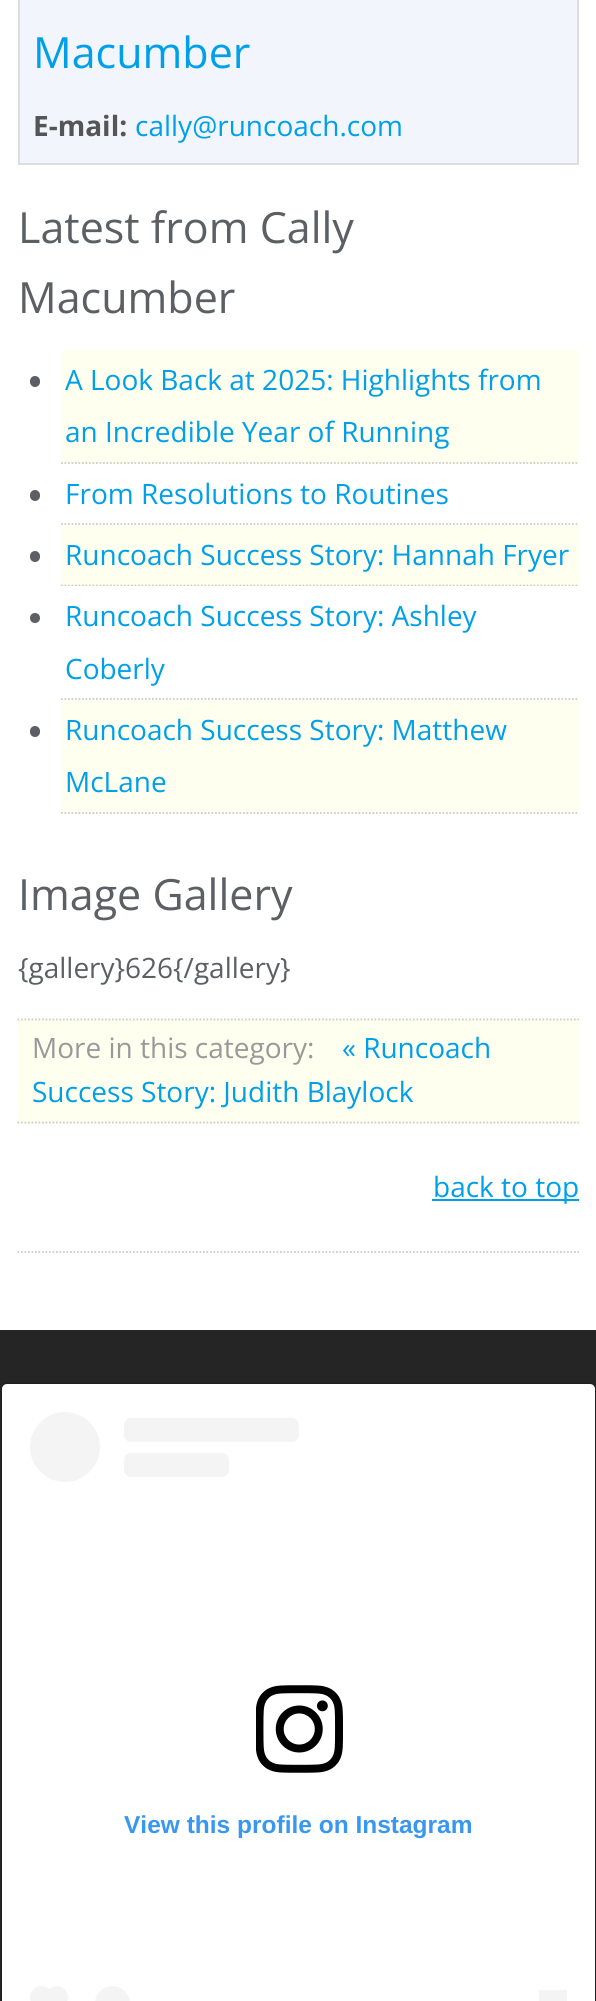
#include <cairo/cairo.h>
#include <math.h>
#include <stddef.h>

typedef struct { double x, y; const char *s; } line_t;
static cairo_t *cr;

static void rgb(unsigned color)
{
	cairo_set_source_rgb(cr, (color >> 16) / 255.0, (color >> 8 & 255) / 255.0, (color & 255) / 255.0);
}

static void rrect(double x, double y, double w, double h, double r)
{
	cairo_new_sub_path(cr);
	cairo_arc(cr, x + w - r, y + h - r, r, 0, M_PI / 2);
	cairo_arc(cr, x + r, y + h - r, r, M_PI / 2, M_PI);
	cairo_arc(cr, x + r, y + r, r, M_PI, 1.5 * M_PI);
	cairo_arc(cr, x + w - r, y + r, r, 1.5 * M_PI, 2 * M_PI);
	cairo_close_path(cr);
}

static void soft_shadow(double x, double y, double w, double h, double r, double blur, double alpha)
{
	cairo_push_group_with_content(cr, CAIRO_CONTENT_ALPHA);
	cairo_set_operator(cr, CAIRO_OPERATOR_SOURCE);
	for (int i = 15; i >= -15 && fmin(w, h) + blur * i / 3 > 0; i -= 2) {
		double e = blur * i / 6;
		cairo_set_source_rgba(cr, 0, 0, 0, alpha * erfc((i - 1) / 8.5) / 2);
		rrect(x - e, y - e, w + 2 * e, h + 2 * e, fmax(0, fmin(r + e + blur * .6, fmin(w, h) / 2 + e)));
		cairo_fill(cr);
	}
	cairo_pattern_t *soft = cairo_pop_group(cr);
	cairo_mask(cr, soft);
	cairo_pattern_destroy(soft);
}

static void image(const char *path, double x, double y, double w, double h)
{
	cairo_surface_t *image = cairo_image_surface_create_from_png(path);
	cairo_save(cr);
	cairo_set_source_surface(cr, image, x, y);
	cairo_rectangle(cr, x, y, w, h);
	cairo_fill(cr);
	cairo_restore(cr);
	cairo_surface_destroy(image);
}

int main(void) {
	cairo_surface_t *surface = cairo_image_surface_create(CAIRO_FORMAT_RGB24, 596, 2001);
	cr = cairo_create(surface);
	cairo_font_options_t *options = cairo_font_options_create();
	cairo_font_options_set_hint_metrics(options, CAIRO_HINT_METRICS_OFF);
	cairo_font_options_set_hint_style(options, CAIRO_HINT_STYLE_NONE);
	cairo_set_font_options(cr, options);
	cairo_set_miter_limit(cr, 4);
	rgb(0xffffff);
	cairo_paint(cr);
	cairo_new_path(cr);
	cairo_move_to(cr, 17.5, 1252);
	cairo_line_to(cr, 579, 1252);
	rgb(0xcccccc);
	cairo_set_line_width(cr, 1.8);
	cairo_set_dash(cr, (double[]){1.75, 1.75}, 2, 0);
	cairo_stroke(cr);
	rgb(0xf2f6fc);
	cairo_rectangle(cr, 19, -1, 559, 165);
	cairo_fill_preserve(cr);
	rgb(0xdddddd);
	cairo_set_line_width(cr, 2);
	cairo_set_dash(cr, NULL, 0, 0);
	cairo_stroke(cr);
	rgb(0xfffff0);
	cairo_rectangle(cr, 61, 350, 518, 114);
	cairo_fill(cr);
	cairo_new_path(cr);
	cairo_move_to(cr, 61, 463);
	cairo_line_to(cr, 579, 463);
	rgb(0xcccccc);
	cairo_set_line_width(cr, 1.8);
	cairo_set_dash(cr, (double[]){1.75, 1.75}, 2, 0);
	cairo_stroke(cr);
	rgb(0x5c6064);
	rrect(30, 376, 10, 11, 5);
	cairo_fill(cr);
	cairo_new_path(cr);
	cairo_move_to(cr, 61, 524);
	cairo_line_to(cr, 579, 524);
	rgb(0xcccccc);
	cairo_stroke(cr);
	rgb(0x5c6064);
	rrect(30, 490, 10, 11, 5);
	cairo_fill(cr);
	rgb(0xfffff0);
	cairo_rectangle(cr, 61, 525, 518, 61);
	cairo_fill(cr);
	cairo_new_path(cr);
	cairo_move_to(cr, 61, 585.5);
	cairo_line_to(cr, 579, 585.5);
	rgb(0xcccccc);
	cairo_stroke(cr);
	rgb(0x5c6064);
	rrect(30, 551, 10, 11, 5);
	cairo_fill(cr);
	rgb(0xffffff);
	cairo_rectangle(cr, 61, 586, 517, 1);
	cairo_fill(cr);
	cairo_new_path(cr);
	cairo_move_to(cr, 61, 699);
	cairo_line_to(cr, 579, 699);
	rgb(0xcccccc);
	cairo_stroke(cr);
	rgb(0x5c6064);
	cairo_arc(cr, 35, 618, 5, 0, 2 * M_PI);
	cairo_fill(cr);
	rgb(0xfffff0);
	cairo_rectangle(cr, 61, 700, 518, 114);
	cairo_fill(cr);
	cairo_new_path(cr);
	cairo_move_to(cr, 61, 813);
	cairo_line_to(cr, 579, 813);
	rgb(0xcccccc);
	cairo_stroke(cr);
	rgb(0x5c6064);
	rrect(30, 726, 10, 11, 5);
	cairo_fill(cr);
	rgb(0xfffff0);
	cairo_rectangle(cr, 18, 1019, 561, 105);
	cairo_fill(cr);
	cairo_new_path(cr);
	cairo_move_to(cr, 17.5, 1019.5);
	cairo_line_to(cr, 579, 1019.5);
	rgb(0xcccccc);
	cairo_stroke(cr);
	cairo_new_path(cr);
	cairo_move_to(cr, 17.5, 1122.5);
	cairo_line_to(cr, 579, 1122.5);
	cairo_stroke(cr);
	rgb(0x009fe9);
	cairo_rectangle(cr, 432, 1199, 147, 2);
	cairo_fill(cr);
	rgb(0x252525);
	cairo_rectangle(cr, 0, 1330, 596, 671);
	cairo_fill(cr);
	rgb(0x000000);
	soft_shadow(2, 1384, 593, 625, 5, 1, 0.5);
	rgb(0xffffff);
	rrect(2, 1384, 593, 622, 5);
	cairo_fill(cr);
	rgb(0xf4f4f4);
	cairo_arc(cr, 65, 1447, 35, 0, 2 * M_PI);
	cairo_fill(cr);
	rrect(124, 1418, 175, 24, 7);
	cairo_fill(cr);
	rrect(124, 1453, 105, 24, 7);
	cairo_fill(cr);
	image("img/1.png", 256, 1685, 87, 88);
	cairo_arc(cr, 41.5, 1997.5, 11.5, 0, 2 * M_PI);
	cairo_fill(cr);
	cairo_new_path(cr);
	cairo_move_to(cr, 33.5, 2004.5);
	cairo_line_to(cr, 49, 1989);
	cairo_line_to(cr, 64.5, 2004.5);
	cairo_line_to(cr, 49, 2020);
	cairo_close_path(cr);
	cairo_fill(cr);
	rrect(46, 1986, 22, 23, 11);
	cairo_fill(cr);
	rrect(95, 1986, 35, 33, 17.5);
	cairo_fill(cr);
	cairo_rectangle(cr, 539, 1990, 28, 11);
	cairo_fill(cr);
	cairo_select_font_face(cr, "Open Sans", CAIRO_FONT_SLANT_NORMAL, CAIRO_FONT_WEIGHT_NORMAL);
	cairo_set_font_size(cr, 43);
	rgb(0x009fe9);
	cairo_move_to(cr, 33, 68);
	cairo_show_text(cr, "Macumber");
	cairo_select_font_face(cr, "Open Sans", CAIRO_FONT_SLANT_NORMAL, CAIRO_FONT_WEIGHT_BOLD);
	cairo_set_font_size(cr, 28);
	rgb(0x555555);
	cairo_move_to(cr, 33, 136);
	cairo_show_text(cr, "E-mail:");
	cairo_select_font_face(cr, "Open Sans", CAIRO_FONT_SLANT_NORMAL, CAIRO_FONT_WEIGHT_NORMAL);
	rgb(0x009fe9);
	cairo_move_to(cr, 135, 136);
	cairo_show_text(cr, "cally@runcoach.com");
	cairo_set_font_size(cr, 43);
	rgb(0x5c6064);
	cairo_move_to(cr, 18, 243);
	cairo_show_text(cr, "Latest from Cally");
	cairo_move_to(cr, 18, 313);
	cairo_show_text(cr, "Macumber");
	cairo_set_font_size(cr, 28);
	rgb(0x009fe9);
	{
		static const line_t items[] = {
			{65, 390, "A Look Back at 2025: Highlights from"},
			{65, 442, "an Incredible Year of Running"},
			{65, 504, "From Resolutions to Routines"},
			{65, 565, "Runcoach Success Story: Hannah Fryer"},
			{65, 626, "Runcoach Success Story: Ashley"},
			{65, 679, "Coberly"},
			{65, 740, "Runcoach Success Story: Matthew"},
			{65, 792, "McLane"},
		};
		for (size_t i = 0; i < sizeof items / sizeof *items; i++) {
			cairo_move_to(cr, items[i].x, items[i].y);
			cairo_show_text(cr, items[i].s);
		}
	}
	cairo_set_font_size(cr, 43);
	rgb(0x5c6064);
	cairo_move_to(cr, 18, 910);
	cairo_show_text(cr, "Image Gallery");
	cairo_set_font_size(cr, 28);
	cairo_move_to(cr, 18, 978);
	cairo_show_text(cr, "{gallery}626{/gallery}");
	rgb(0x999999);
	cairo_move_to(cr, 32, 1058);
	cairo_show_text(cr, "More in this category:");
	rgb(0x009fe9);
	{
		static const line_t items[] = {
			{342, 1058, "« Runcoach"},
			{32, 1102, "Success Story: Judith Blaylock"},
			{433, 1197, "back to top"},
		};
		for (size_t i = 0; i < sizeof items / sizeof *items; i++) {
			cairo_move_to(cr, items[i].x, items[i].y);
			cairo_show_text(cr, items[i].s);
		}
	}
	cairo_select_font_face(cr, "Liberation Sans", CAIRO_FONT_SLANT_NORMAL, CAIRO_FONT_WEIGHT_BOLD);
	cairo_set_font_size(cr, 24.5);
	rgb(0x3897f0);
	cairo_move_to(cr, 124, 1833);
	cairo_show_text(cr, "View this profile on Instagram");
	cairo_surface_write_to_png(surface, "page.png");
	cairo_font_options_destroy(options);
	cairo_destroy(cr);
	cairo_surface_destroy(surface);
	return 0;
}
